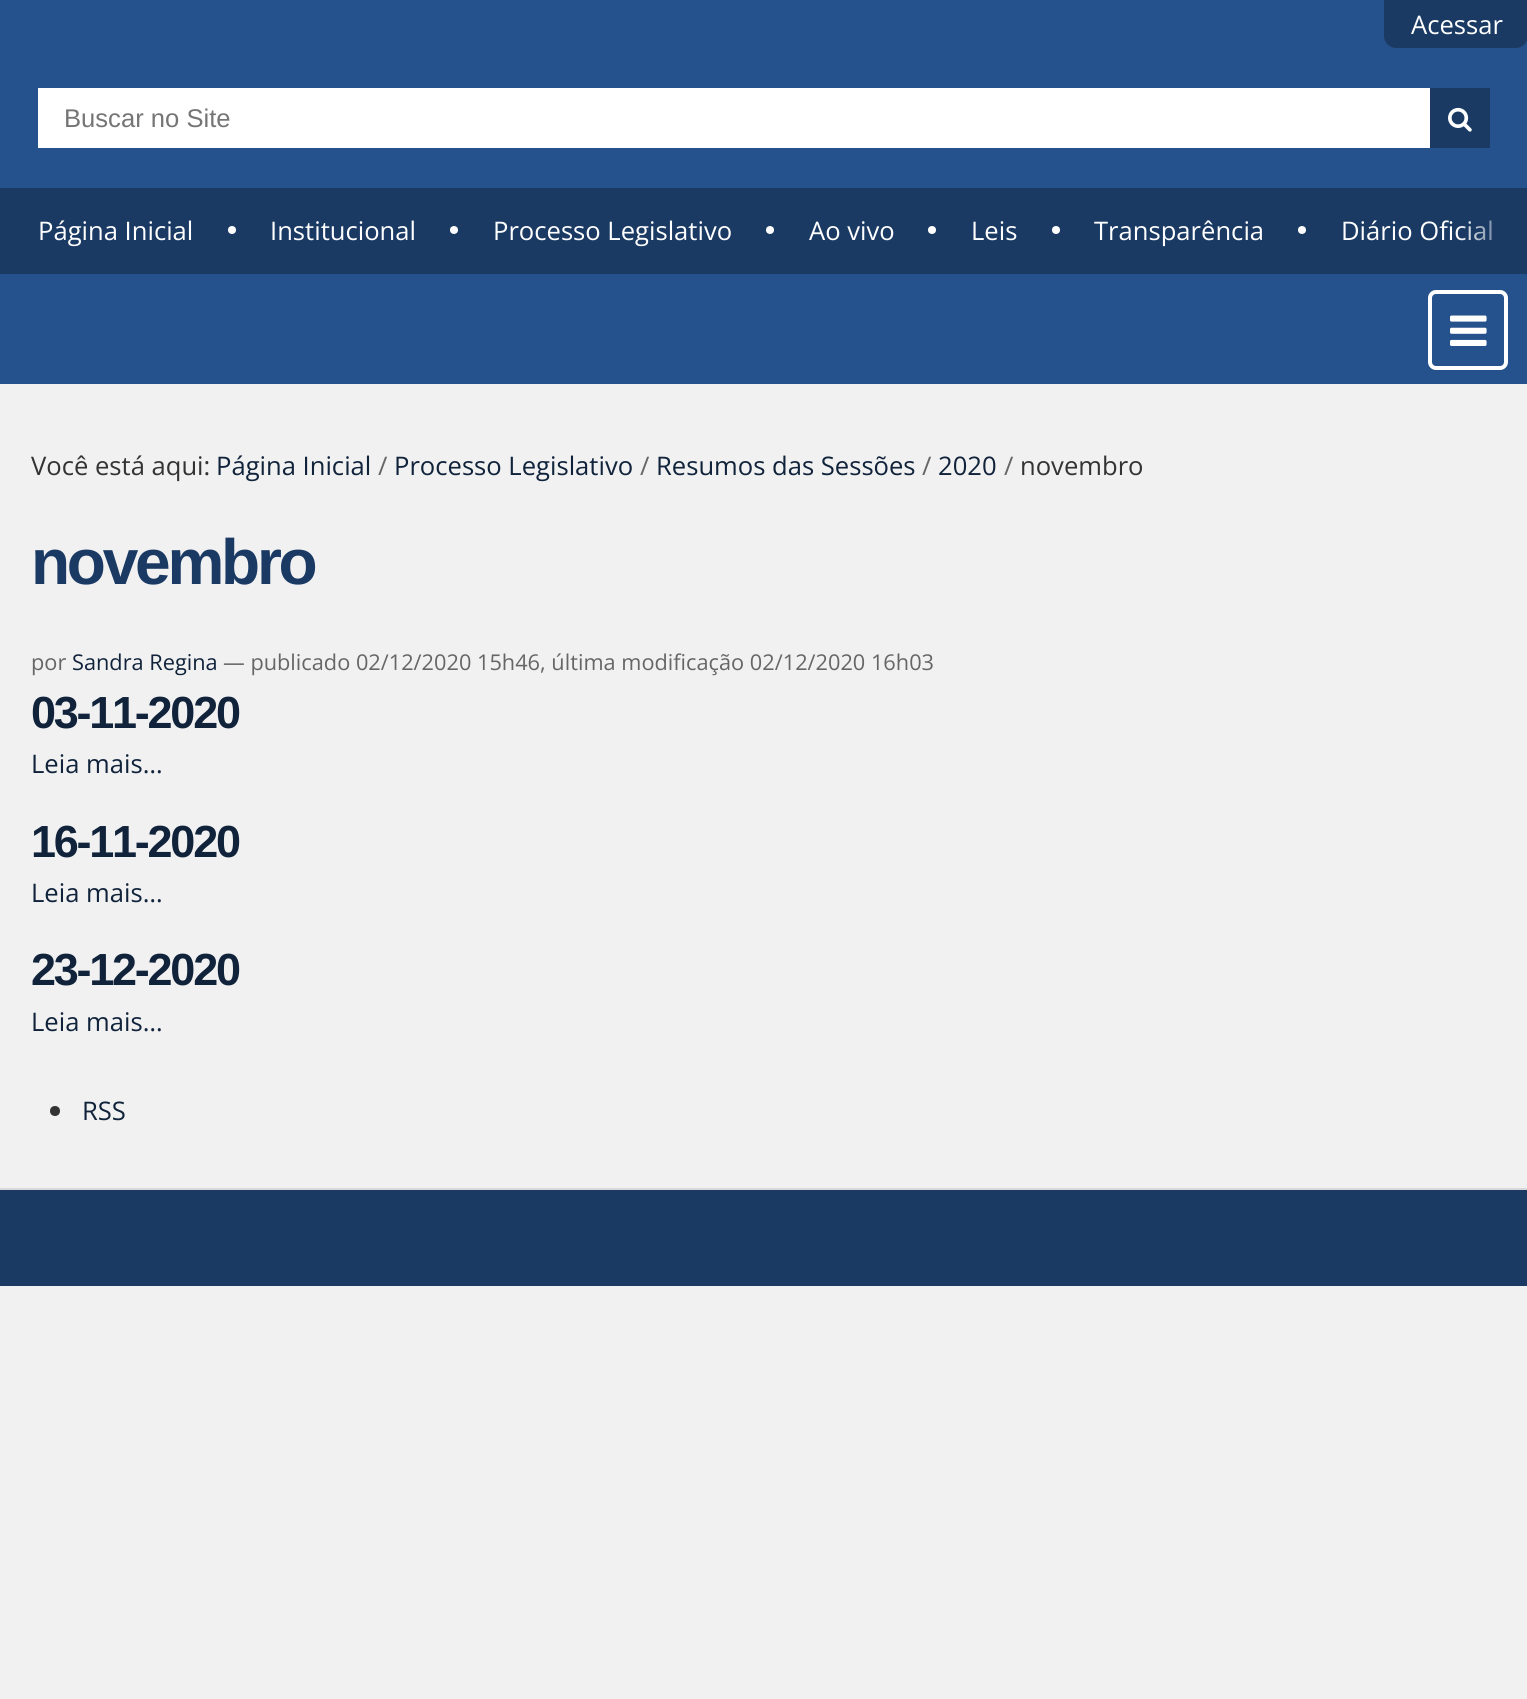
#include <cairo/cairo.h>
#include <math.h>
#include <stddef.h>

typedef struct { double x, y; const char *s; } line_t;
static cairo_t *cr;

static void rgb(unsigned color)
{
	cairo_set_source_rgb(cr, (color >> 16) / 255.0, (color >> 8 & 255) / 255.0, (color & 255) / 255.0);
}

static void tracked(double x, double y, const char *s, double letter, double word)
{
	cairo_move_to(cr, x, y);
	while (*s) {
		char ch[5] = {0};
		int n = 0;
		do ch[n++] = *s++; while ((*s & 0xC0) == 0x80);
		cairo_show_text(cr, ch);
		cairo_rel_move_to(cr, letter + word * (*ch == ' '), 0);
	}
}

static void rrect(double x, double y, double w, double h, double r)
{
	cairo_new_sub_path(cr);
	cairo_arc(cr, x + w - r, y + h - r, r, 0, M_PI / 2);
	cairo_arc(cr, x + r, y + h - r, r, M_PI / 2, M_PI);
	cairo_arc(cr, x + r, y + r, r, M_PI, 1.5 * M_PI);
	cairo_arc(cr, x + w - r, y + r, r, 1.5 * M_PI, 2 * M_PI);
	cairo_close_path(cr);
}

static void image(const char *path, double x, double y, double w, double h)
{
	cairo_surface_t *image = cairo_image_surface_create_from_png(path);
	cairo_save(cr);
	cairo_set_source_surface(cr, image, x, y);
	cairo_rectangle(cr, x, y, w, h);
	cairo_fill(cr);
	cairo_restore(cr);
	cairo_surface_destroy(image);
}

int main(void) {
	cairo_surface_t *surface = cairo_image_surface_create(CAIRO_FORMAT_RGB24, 1527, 1699);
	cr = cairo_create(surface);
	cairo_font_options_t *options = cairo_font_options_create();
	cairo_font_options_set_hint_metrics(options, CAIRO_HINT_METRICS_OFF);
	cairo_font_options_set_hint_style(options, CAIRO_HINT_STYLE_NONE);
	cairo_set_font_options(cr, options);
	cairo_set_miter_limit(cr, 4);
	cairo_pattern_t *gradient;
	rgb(0xf1f1f1);
	cairo_paint(cr);
	rgb(0x25528c);
	cairo_rectangle(cr, 0, 0, 1527, 384);
	cairo_fill(cr);
	rgb(0x1a3a64);
	cairo_new_path(cr);
	cairo_move_to(cr, 1384, 0);
	cairo_line_to(cr, 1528, 0);
	cairo_line_to(cr, 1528, 36);
	cairo_curve_to(cr, 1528, 42.5, 1522.5, 48, 1516, 48);
	cairo_line_to(cr, 1396, 48);
	cairo_curve_to(cr, 1389.5, 48, 1384, 42.5, 1384, 36);
	cairo_close_path(cr);
	cairo_fill(cr);
	rgb(0xffffff);
	cairo_rectangle(cr, 38, 88, 1392, 60);
	cairo_fill(cr);
	rgb(0x1a3a64);
	cairo_rectangle(cr, 1430, 88, 60, 60);
	cairo_fill(cr);
	image("img/1.png", 1448, 107, 24, 25);
	cairo_rectangle(cr, 0, 188, 1527, 86);
	cairo_fill(cr);
	rgb(0xffffff);
	cairo_arc(cr, 232, 230, 4, 0, 2 * M_PI);
	cairo_fill(cr);
	cairo_arc(cr, 454, 230, 4, 0, 2 * M_PI);
	cairo_fill(cr);
	cairo_arc(cr, 770, 230, 4, 0, 2 * M_PI);
	cairo_fill(cr);
	cairo_arc(cr, 1302, 230, 4, 0, 2 * M_PI);
	cairo_fill(cr);
	cairo_arc(cr, 932, 230, 4, 0, 2 * M_PI);
	cairo_fill(cr);
	cairo_arc(cr, 1056, 230, 4, 0, 2 * M_PI);
	cairo_fill(cr);
	rrect(1430, 292, 76, 76, 6);
	cairo_set_line_width(cr, 4);
	cairo_stroke(cr);
	image("img/2.png", 1450, 315, 37, 31);
	rgb(0x333333);
	cairo_arc(cr, 55, 1111, 5, 0, 2 * M_PI);
	cairo_fill(cr);
	rgb(0xd8d8d8);
	cairo_rectangle(cr, 0, 1188, 1527, 2);
	cairo_fill(cr);
	rgb(0x1a3a64);
	cairo_rectangle(cr, 0, 1190, 1527, 96);
	cairo_fill(cr);
	cairo_select_font_face(cr, "Open Sans", CAIRO_FONT_SLANT_NORMAL, CAIRO_FONT_WEIGHT_NORMAL);
	cairo_set_font_size(cr, 25.6);
	rgb(0xffffff);
	cairo_move_to(cr, 1411, 34);
	cairo_show_text(cr, "Acessar");
	cairo_select_font_face(cr, "Liberation Sans", CAIRO_FONT_SLANT_NORMAL, CAIRO_FONT_WEIGHT_NORMAL);
	rgb(0x757575);
	cairo_move_to(cr, 64, 127);
	cairo_show_text(cr, "Buscar no Site");
	cairo_select_font_face(cr, "Open Sans", CAIRO_FONT_SLANT_NORMAL, CAIRO_FONT_WEIGHT_NORMAL);
	rgb(0xffffff);
	{
		static const line_t items[] = {
			{38, 240, "Página Inicial"},
			{270, 240, "Institucional"},
			{493, 240, "Processo Legislativo"},
			{1094, 240, "Transparência"},
			{1341, 240, "Diário Oficial"},
			{809, 240, "Ao vivo"},
			{971, 240, "Leis"},
		};
		for (size_t i = 0; i < sizeof items / sizeof *items; i++) {
			cairo_move_to(cr, items[i].x, items[i].y);
			cairo_show_text(cr, items[i].s);
		}
	}
	gradient = cairo_pattern_create_linear(1458, 231, 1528, 231);
	cairo_pattern_add_color_stop_rgba(gradient, 0, 0.102, 0.227, 0.392, 0);
	cairo_pattern_add_color_stop_rgba(gradient, 0.8, 0.102, 0.227, 0.392, 0.9);
	cairo_set_source(cr, gradient);
	cairo_pattern_destroy(gradient);
	cairo_rectangle(cr, 1459, 220, 33, 21);
	cairo_fill(cr);
	rgb(0x333333);
	cairo_move_to(cr, 31, 475);
	cairo_show_text(cr, "Você está aqui:");
	rgb(0x10233b);
	cairo_move_to(cr, 216, 475);
	cairo_show_text(cr, "Página Inicial");
	rgb(0x666666);
	cairo_move_to(cr, 378, 475);
	cairo_show_text(cr, "/");
	rgb(0x10233b);
	cairo_move_to(cr, 394, 475);
	cairo_show_text(cr, "Processo Legislativo");
	rgb(0x666666);
	cairo_move_to(cr, 640, 475);
	cairo_show_text(cr, "/");
	rgb(0x10233b);
	cairo_move_to(cr, 656, 475);
	cairo_show_text(cr, "Resumos das Sessões");
	rgb(0x666666);
	cairo_move_to(cr, 922, 475);
	cairo_show_text(cr, "/");
	rgb(0x10233b);
	cairo_move_to(cr, 938, 475);
	cairo_show_text(cr, "2020");
	rgb(0x666666);
	cairo_move_to(cr, 1004, 475);
	cairo_show_text(cr, "/");
	rgb(0x333333);
	cairo_move_to(cr, 1020, 475);
	cairo_show_text(cr, "novembro");
	cairo_select_font_face(cr, "Liberation Sans", CAIRO_FONT_SLANT_NORMAL, CAIRO_FONT_WEIGHT_BOLD);
	cairo_set_font_size(cr, 64);
	rgb(0x1a3a64);
	tracked(31, 584, "novembro", -3.25, 0);
	cairo_select_font_face(cr, "Open Sans", CAIRO_FONT_SLANT_NORMAL, CAIRO_FONT_WEIGHT_NORMAL);
	cairo_set_font_size(cr, 21.75);
	rgb(0x666666);
	cairo_move_to(cr, 31, 670);
	cairo_show_text(cr, "por");
	rgb(0x10233b);
	cairo_move_to(cr, 72, 670);
	cairo_show_text(cr, "Sandra Regina");
	rgb(0x666666);
	cairo_move_to(cr, 223, 670);
	cairo_show_text(cr, "— publicado 02/12/2020 15h46, última modificação 02/12/2020 16h03");
	cairo_select_font_face(cr, "Liberation Sans", CAIRO_FONT_SLANT_NORMAL, CAIRO_FONT_WEIGHT_BOLD);
	cairo_set_font_size(cr, 45);
	rgb(0x10233b);
	tracked(31, 728, "03-11-2020", -2.25, 0);
	cairo_select_font_face(cr, "Open Sans", CAIRO_FONT_SLANT_NORMAL, CAIRO_FONT_WEIGHT_NORMAL);
	cairo_set_font_size(cr, 25.6);
	cairo_move_to(cr, 31, 773);
	cairo_show_text(cr, "Leia mais…");
	cairo_select_font_face(cr, "Liberation Sans", CAIRO_FONT_SLANT_NORMAL, CAIRO_FONT_WEIGHT_BOLD);
	cairo_set_font_size(cr, 45);
	tracked(31, 857, "16-11-2020", -2.25, 0);
	cairo_select_font_face(cr, "Open Sans", CAIRO_FONT_SLANT_NORMAL, CAIRO_FONT_WEIGHT_NORMAL);
	cairo_set_font_size(cr, 25.6);
	cairo_move_to(cr, 31, 902);
	cairo_show_text(cr, "Leia mais…");
	cairo_select_font_face(cr, "Liberation Sans", CAIRO_FONT_SLANT_NORMAL, CAIRO_FONT_WEIGHT_BOLD);
	cairo_set_font_size(cr, 45);
	tracked(31, 985, "23-12-2020", -2.25, 0);
	cairo_select_font_face(cr, "Open Sans", CAIRO_FONT_SLANT_NORMAL, CAIRO_FONT_WEIGHT_NORMAL);
	cairo_set_font_size(cr, 25.6);
	cairo_move_to(cr, 31, 1031);
	cairo_show_text(cr, "Leia mais…");
	cairo_move_to(cr, 82, 1120);
	cairo_show_text(cr, "RSS");
	cairo_surface_write_to_png(surface, "page.png");
	cairo_font_options_destroy(options);
	cairo_destroy(cr);
	cairo_surface_destroy(surface);
	return 0;
}
